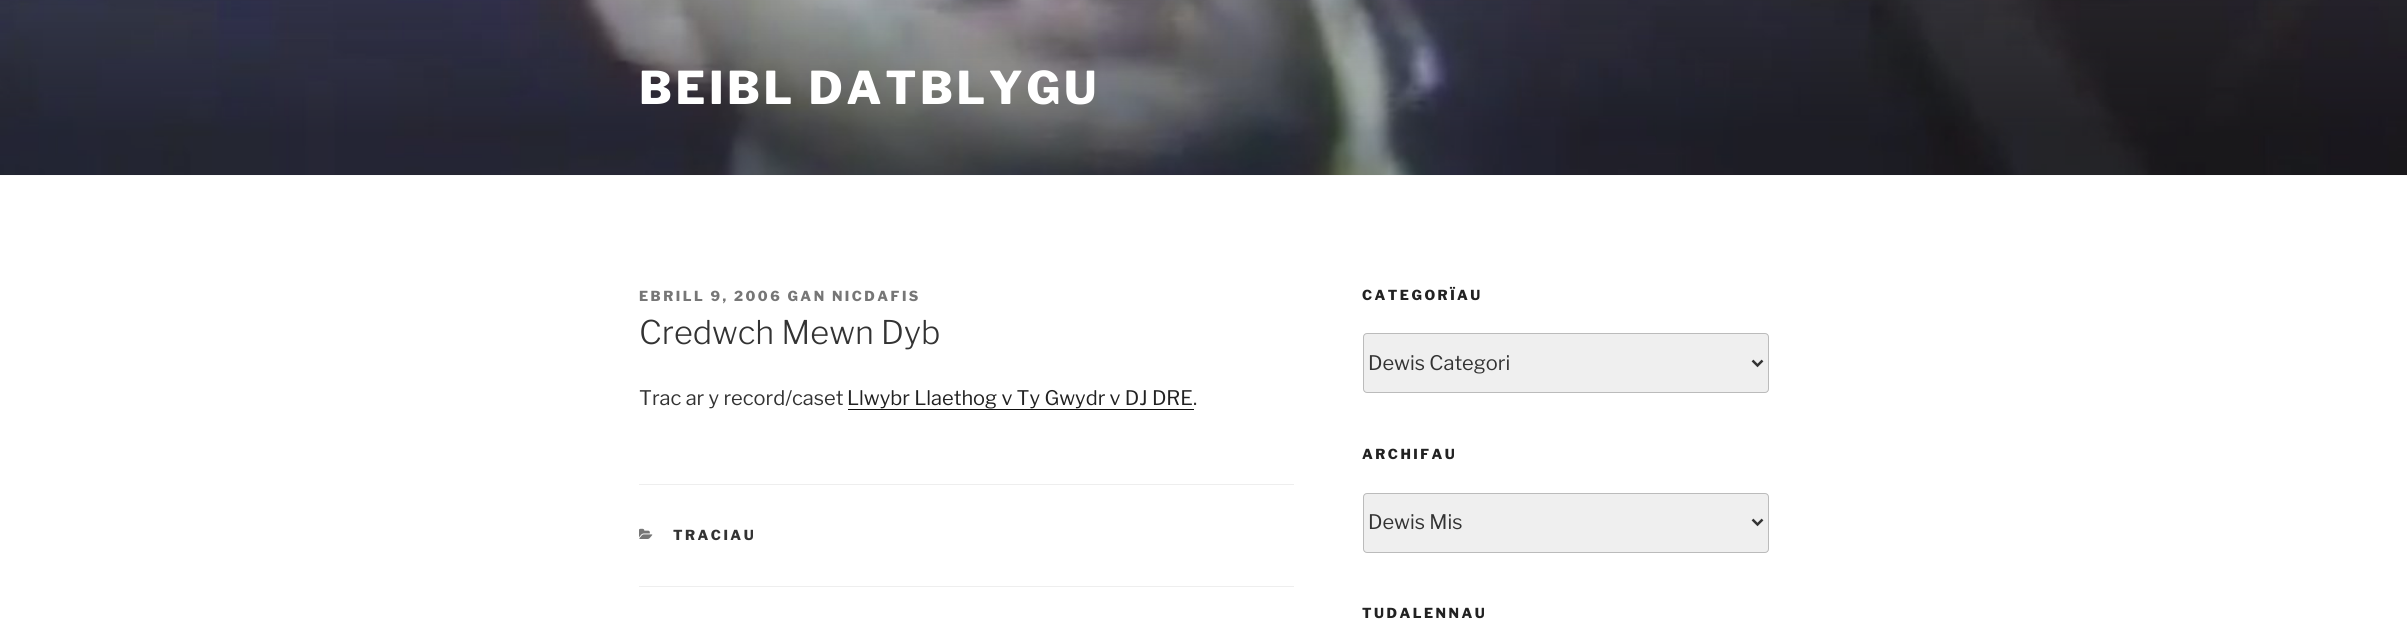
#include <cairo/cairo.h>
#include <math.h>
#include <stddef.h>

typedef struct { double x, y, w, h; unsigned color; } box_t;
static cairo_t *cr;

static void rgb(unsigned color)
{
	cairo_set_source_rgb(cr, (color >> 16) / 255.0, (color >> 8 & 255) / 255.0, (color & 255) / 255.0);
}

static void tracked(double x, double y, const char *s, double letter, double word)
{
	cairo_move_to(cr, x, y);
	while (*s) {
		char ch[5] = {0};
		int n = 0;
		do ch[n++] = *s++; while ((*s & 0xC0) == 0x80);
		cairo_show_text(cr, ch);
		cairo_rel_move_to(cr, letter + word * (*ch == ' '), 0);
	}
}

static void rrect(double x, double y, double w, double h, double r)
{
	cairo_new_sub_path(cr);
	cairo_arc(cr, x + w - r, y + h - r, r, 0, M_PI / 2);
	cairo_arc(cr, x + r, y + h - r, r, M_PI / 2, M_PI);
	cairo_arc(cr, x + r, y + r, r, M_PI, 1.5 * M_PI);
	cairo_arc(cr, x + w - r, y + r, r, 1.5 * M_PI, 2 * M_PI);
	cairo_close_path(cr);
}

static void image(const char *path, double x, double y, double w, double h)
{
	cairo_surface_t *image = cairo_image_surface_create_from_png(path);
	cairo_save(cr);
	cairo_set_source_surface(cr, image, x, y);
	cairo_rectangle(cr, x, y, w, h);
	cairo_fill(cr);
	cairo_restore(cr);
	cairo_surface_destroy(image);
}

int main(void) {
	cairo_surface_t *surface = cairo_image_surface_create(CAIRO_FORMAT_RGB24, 2407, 637);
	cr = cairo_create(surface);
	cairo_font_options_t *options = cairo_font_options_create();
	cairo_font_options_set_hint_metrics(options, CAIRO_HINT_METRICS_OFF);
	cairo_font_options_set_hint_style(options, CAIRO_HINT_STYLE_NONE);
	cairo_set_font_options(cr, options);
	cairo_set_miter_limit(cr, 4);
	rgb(0xffffff);
	cairo_paint(cr);
	rgb(0xfafafa);
	cairo_rectangle(cr, 0, 175, 2407, 1);
	cairo_fill(cr);
	image("img/1.png", 0, 0, 2407, 175);
	{
		static const box_t items[] = {
			{848, 409, 346, 1, 0x0f0f0f},
			{639, 484, 655, 1, 0xeeeeee},
			{639, 586, 655, 1, 0xeeeeee},
		};
		for (size_t i = 0; i < sizeof items / sizeof *items; i++) {
			rgb(items[i].color);
			cairo_rectangle(cr, items[i].x, items[i].y, items[i].w, items[i].h);
			cairo_fill(cr);
		}
	}
	image("img/2.png", 639, 528, 14, 11);
	rgb(0xefefef);
	rrect(1363.5, 333.5, 405, 59, 3.5);
	cairo_fill_preserve(cr);
	rgb(0xbbbbbb);
	cairo_set_line_width(cr, 1);
	cairo_stroke(cr);
	cairo_new_path(cr);
	cairo_move_to(cr, 1752.5, 360.5);
	cairo_line_to(cr, 1757.5, 365.5);
	cairo_line_to(cr, 1762.5, 360.5);
	rgb(0x333333);
	cairo_set_line_width(cr, 2.5);
	cairo_stroke(cr);
	rgb(0xefefef);
	rrect(1363.5, 493.5, 405, 59, 3.5);
	cairo_fill_preserve(cr);
	rgb(0xbbbbbb);
	cairo_set_line_width(cr, 1);
	cairo_stroke(cr);
	cairo_new_path(cr);
	cairo_move_to(cr, 1752.5, 519.5);
	cairo_line_to(cr, 1757.5, 524.5);
	cairo_line_to(cr, 1762.5, 519.5);
	rgb(0x333333);
	cairo_set_line_width(cr, 2.5);
	cairo_stroke(cr);
	cairo_select_font_face(cr, "Libre Franklin ExtraBold", CAIRO_FONT_SLANT_NORMAL, CAIRO_FONT_WEIGHT_NORMAL);
	cairo_set_font_size(cr, 45);
	rgb(0xffffff);
	tracked(639, 104, "BEIBL DATBLYGU", 3.6, 0);
	cairo_set_font_size(cr, 13.75);
	rgb(0x767676);
	tracked(639, 301, "EBRILL 9, 2006 GAN NICDAFIS", 2.5, 0);
	cairo_select_font_face(cr, "Libre Franklin Light", CAIRO_FONT_SLANT_NORMAL, CAIRO_FONT_WEIGHT_NORMAL);
	cairo_set_font_size(cr, 32.5);
	rgb(0x333333);
	cairo_move_to(cr, 639, 344);
	cairo_show_text(cr, "Credwch Mewn Dyb");
	cairo_select_font_face(cr, "Libre Franklin", CAIRO_FONT_SLANT_NORMAL, CAIRO_FONT_WEIGHT_NORMAL);
	cairo_set_font_size(cr, 20);
	cairo_move_to(cr, 639, 405);
	cairo_show_text(cr, "Trac ar y record/caset");
	rgb(0x222222);
	cairo_move_to(cr, 847, 405);
	cairo_show_text(cr, "Llwybr Llaethog v Ty Gwydr v DJ DRE");
	rgb(0x333333);
	cairo_move_to(cr, 1193, 405);
	cairo_show_text(cr, ".");
	cairo_select_font_face(cr, "Libre Franklin ExtraBold", CAIRO_FONT_SLANT_NORMAL, CAIRO_FONT_WEIGHT_NORMAL);
	cairo_set_font_size(cr, 13.75);
	tracked(673, 540, "TRACIAU", 2.5, 0);
	rgb(0x222222);
	tracked(1362, 300, "CATEGORÏAU", 2.5, 0);
	cairo_select_font_face(cr, "Libre Franklin", CAIRO_FONT_SLANT_NORMAL, CAIRO_FONT_WEIGHT_NORMAL);
	cairo_set_font_size(cr, 20);
	rgb(0x333333);
	cairo_move_to(cr, 1368, 370);
	cairo_show_text(cr, "Dewis Categori");
	cairo_select_font_face(cr, "Libre Franklin ExtraBold", CAIRO_FONT_SLANT_NORMAL, CAIRO_FONT_WEIGHT_NORMAL);
	cairo_set_font_size(cr, 13.75);
	rgb(0x222222);
	tracked(1362, 459, "ARCHIFAU", 2.5, 0);
	cairo_select_font_face(cr, "Libre Franklin", CAIRO_FONT_SLANT_NORMAL, CAIRO_FONT_WEIGHT_NORMAL);
	cairo_set_font_size(cr, 20);
	rgb(0x333333);
	cairo_move_to(cr, 1368, 529);
	cairo_show_text(cr, "Dewis Mis");
	cairo_select_font_face(cr, "Libre Franklin ExtraBold", CAIRO_FONT_SLANT_NORMAL, CAIRO_FONT_WEIGHT_NORMAL);
	cairo_set_font_size(cr, 13.75);
	rgb(0x222222);
	tracked(1362, 618, "TUDALENNAU", 2.5, 0);
	cairo_surface_write_to_png(surface, "page.png");
	cairo_font_options_destroy(options);
	cairo_destroy(cr);
	cairo_surface_destroy(surface);
	return 0;
}
